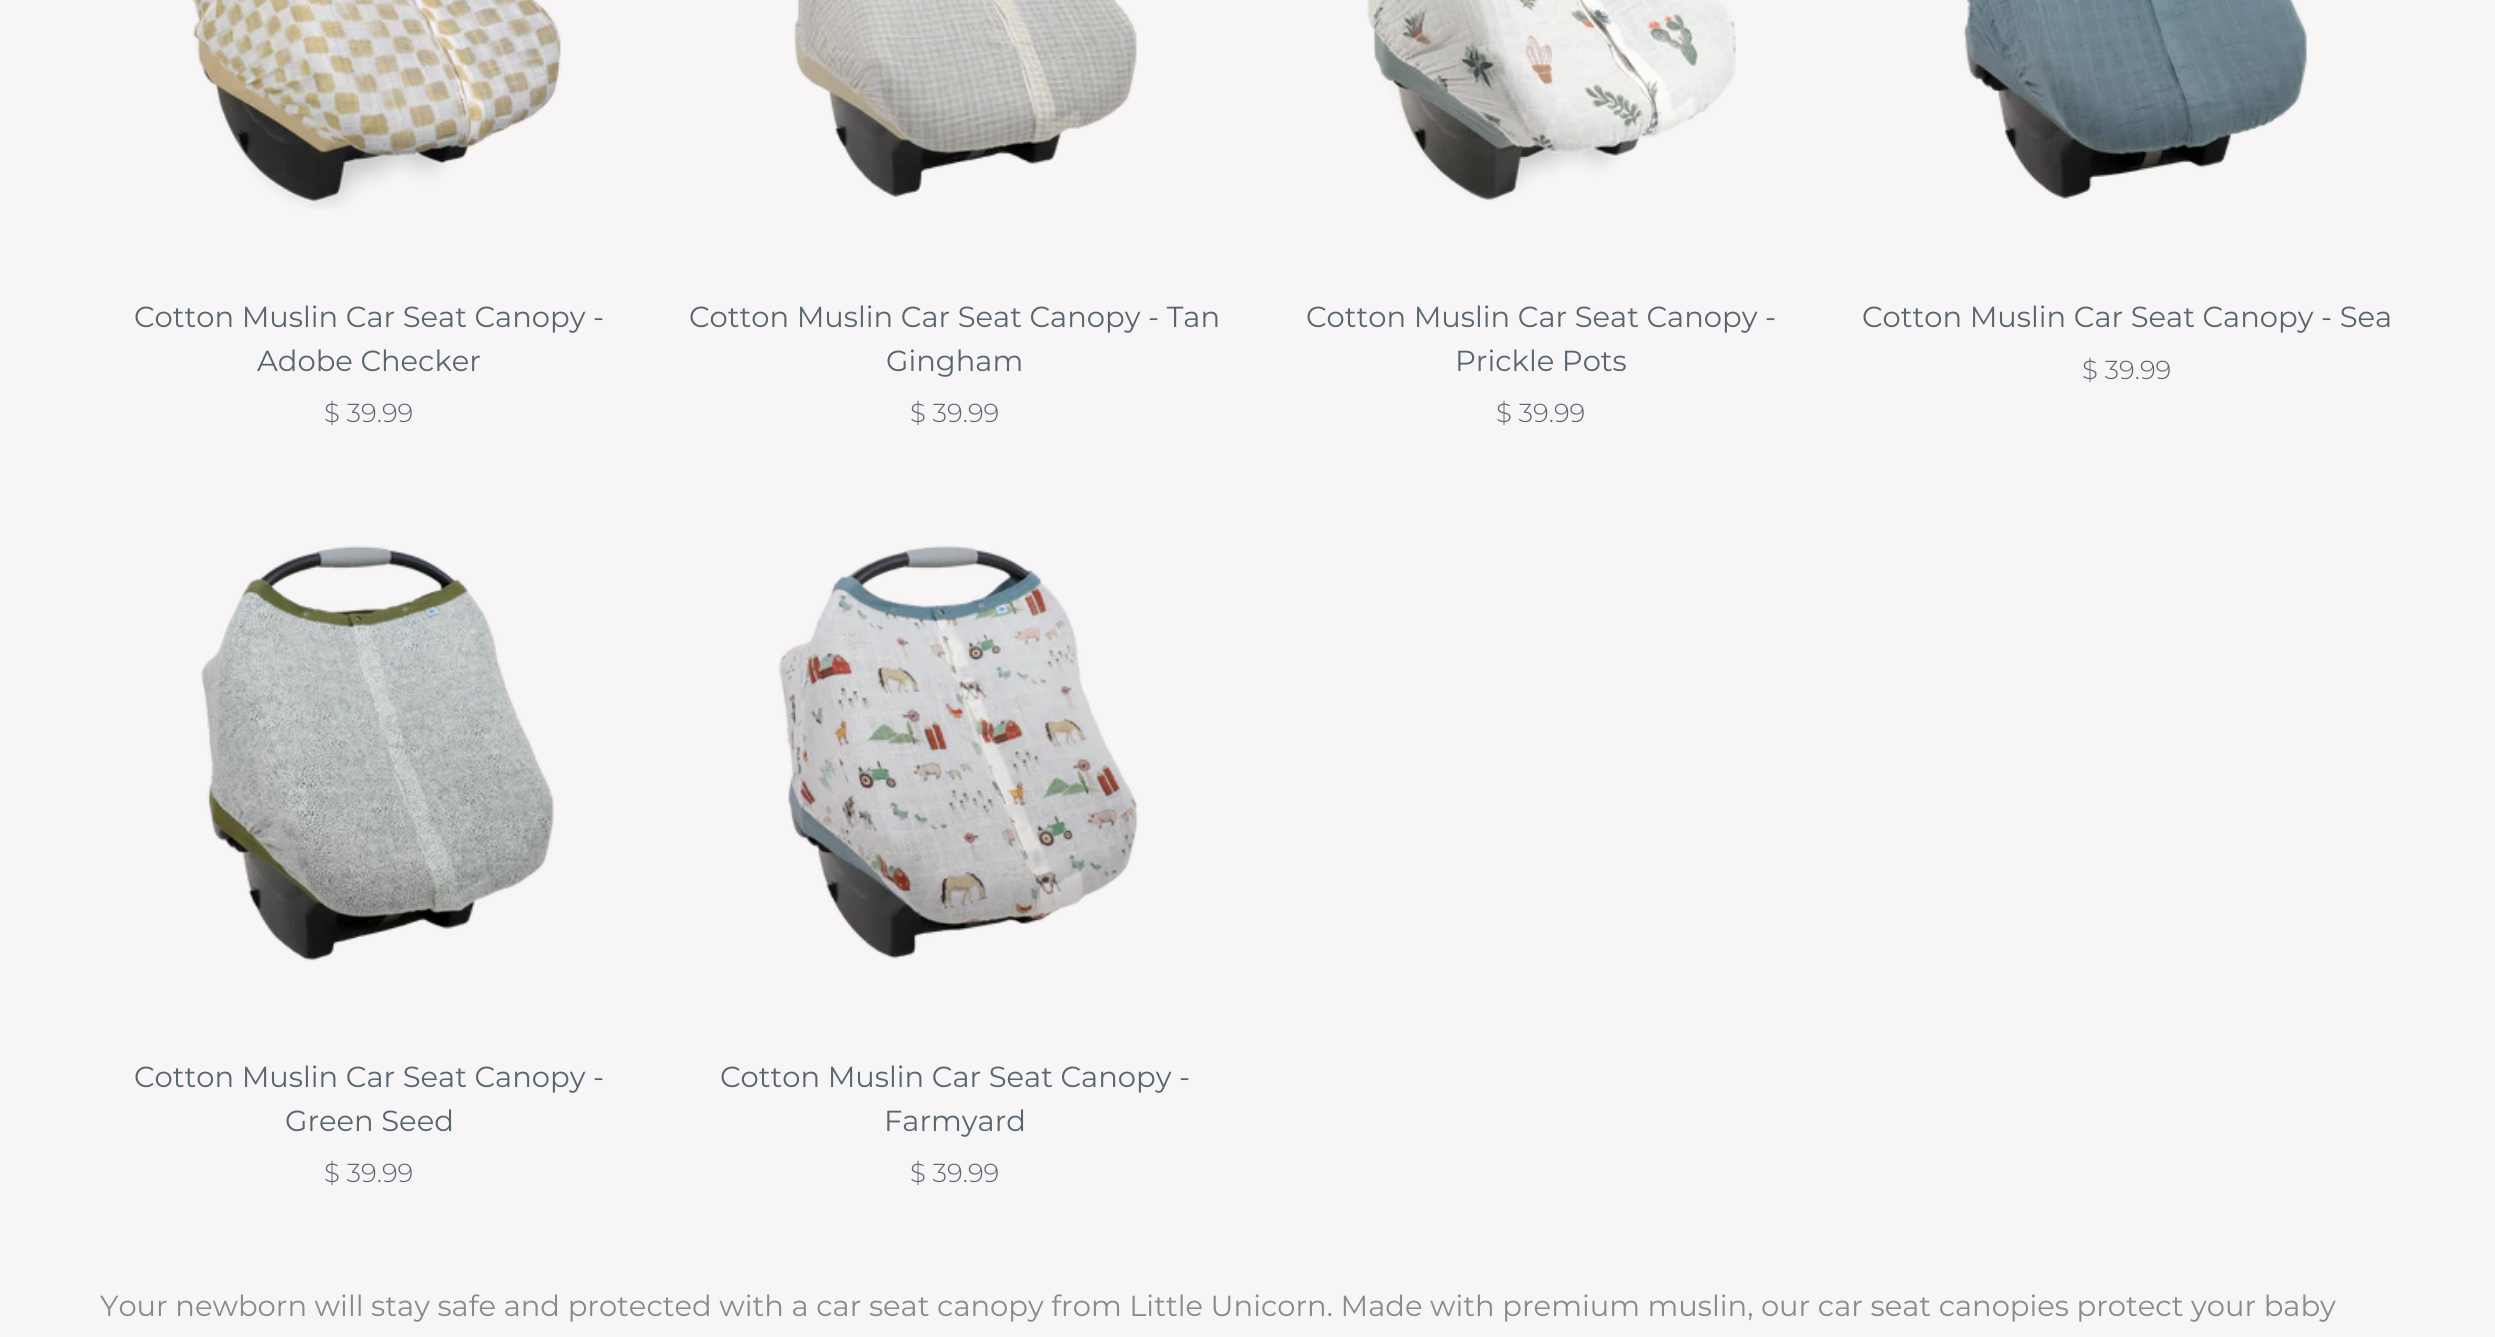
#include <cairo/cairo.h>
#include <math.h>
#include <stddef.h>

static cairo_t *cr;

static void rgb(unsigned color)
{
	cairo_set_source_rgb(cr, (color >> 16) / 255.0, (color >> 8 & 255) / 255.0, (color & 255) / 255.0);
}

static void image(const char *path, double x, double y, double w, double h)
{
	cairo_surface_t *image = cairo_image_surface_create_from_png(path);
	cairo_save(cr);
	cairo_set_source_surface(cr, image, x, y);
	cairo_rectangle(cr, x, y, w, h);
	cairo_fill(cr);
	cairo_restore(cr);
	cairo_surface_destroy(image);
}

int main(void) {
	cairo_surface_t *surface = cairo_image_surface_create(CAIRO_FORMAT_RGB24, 2495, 1337);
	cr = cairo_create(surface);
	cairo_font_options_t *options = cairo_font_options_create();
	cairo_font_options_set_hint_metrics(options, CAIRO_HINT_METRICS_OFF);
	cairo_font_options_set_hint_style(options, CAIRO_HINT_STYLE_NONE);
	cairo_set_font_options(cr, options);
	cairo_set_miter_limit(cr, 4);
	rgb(0xf7f5f5);
	cairo_paint(cr);
	image("img/1.png", 192, 0, 369, 209);
	image("img/2.png", 793, 0, 345, 197);
	image("img/3.png", 1366, 0, 370, 201);
	image("img/4.png", 1963, 0, 344, 199);
	image("img/5.png", 200, 545, 354, 416);
	image("img/6.png", 778, 545, 360, 414);
	cairo_select_font_face(cr, "Montserrat", CAIRO_FONT_SLANT_NORMAL, CAIRO_FONT_WEIGHT_NORMAL);
	cairo_set_font_size(cr, 29);
	rgb(0x586671);
	cairo_move_to(cr, 134, 327);
	cairo_show_text(cr, "Cotton Muslin Car Seat Canopy -");
	cairo_move_to(cr, 257, 371);
	cairo_show_text(cr, "Adobe Checker");
	cairo_select_font_face(cr, "Montserrat Light", CAIRO_FONT_SLANT_NORMAL, CAIRO_FONT_WEIGHT_NORMAL);
	cairo_set_font_size(cr, 26);
	cairo_move_to(cr, 324, 422);
	cairo_show_text(cr, "$ 39.99");
	cairo_select_font_face(cr, "Montserrat", CAIRO_FONT_SLANT_NORMAL, CAIRO_FONT_WEIGHT_NORMAL);
	cairo_set_font_size(cr, 29);
	cairo_move_to(cr, 689, 327);
	cairo_show_text(cr, "Cotton Muslin Car Seat Canopy - Tan");
	cairo_move_to(cr, 886, 371);
	cairo_show_text(cr, "Gingham");
	cairo_select_font_face(cr, "Montserrat Light", CAIRO_FONT_SLANT_NORMAL, CAIRO_FONT_WEIGHT_NORMAL);
	cairo_set_font_size(cr, 26);
	cairo_move_to(cr, 910, 422);
	cairo_show_text(cr, "$ 39.99");
	cairo_select_font_face(cr, "Montserrat", CAIRO_FONT_SLANT_NORMAL, CAIRO_FONT_WEIGHT_NORMAL);
	cairo_set_font_size(cr, 29);
	cairo_move_to(cr, 1306, 327);
	cairo_show_text(cr, "Cotton Muslin Car Seat Canopy -");
	cairo_move_to(cr, 1455, 371);
	cairo_show_text(cr, "Prickle Pots");
	cairo_select_font_face(cr, "Montserrat Light", CAIRO_FONT_SLANT_NORMAL, CAIRO_FONT_WEIGHT_NORMAL);
	cairo_set_font_size(cr, 26);
	cairo_move_to(cr, 1496, 422);
	cairo_show_text(cr, "$ 39.99");
	cairo_select_font_face(cr, "Montserrat", CAIRO_FONT_SLANT_NORMAL, CAIRO_FONT_WEIGHT_NORMAL);
	cairo_set_font_size(cr, 29);
	cairo_move_to(cr, 1862, 327);
	cairo_show_text(cr, "Cotton Muslin Car Seat Canopy - Sea");
	cairo_select_font_face(cr, "Montserrat Light", CAIRO_FONT_SLANT_NORMAL, CAIRO_FONT_WEIGHT_NORMAL);
	cairo_set_font_size(cr, 26);
	cairo_move_to(cr, 2082, 379);
	cairo_show_text(cr, "$ 39.99");
	cairo_select_font_face(cr, "Montserrat", CAIRO_FONT_SLANT_NORMAL, CAIRO_FONT_WEIGHT_NORMAL);
	cairo_set_font_size(cr, 29);
	cairo_move_to(cr, 134, 1087);
	cairo_show_text(cr, "Cotton Muslin Car Seat Canopy -");
	cairo_move_to(cr, 285, 1131);
	cairo_show_text(cr, "Green Seed");
	cairo_select_font_face(cr, "Montserrat Light", CAIRO_FONT_SLANT_NORMAL, CAIRO_FONT_WEIGHT_NORMAL);
	cairo_set_font_size(cr, 26);
	cairo_move_to(cr, 324, 1182);
	cairo_show_text(cr, "$ 39.99");
	cairo_select_font_face(cr, "Montserrat", CAIRO_FONT_SLANT_NORMAL, CAIRO_FONT_WEIGHT_NORMAL);
	cairo_set_font_size(cr, 29);
	cairo_move_to(cr, 720, 1087);
	cairo_show_text(cr, "Cotton Muslin Car Seat Canopy -");
	cairo_move_to(cr, 884, 1131);
	cairo_show_text(cr, "Farmyard");
	cairo_select_font_face(cr, "Montserrat Light", CAIRO_FONT_SLANT_NORMAL, CAIRO_FONT_WEIGHT_NORMAL);
	cairo_set_font_size(cr, 26);
	cairo_move_to(cr, 910, 1182);
	cairo_show_text(cr, "$ 39.99");
	cairo_select_font_face(cr, "Montserrat", CAIRO_FONT_SLANT_NORMAL, CAIRO_FONT_WEIGHT_NORMAL);
	cairo_set_font_size(cr, 29);
	rgb(0x888b8d);
	cairo_move_to(cr, 100, 1316);
	cairo_show_text(cr, "Your newborn will stay safe and protected with a car seat canopy from Little Unicorn. Made with premium muslin, our car seat canopies protect your baby");
	cairo_surface_write_to_png(surface, "page.png");
	cairo_font_options_destroy(options);
	cairo_destroy(cr);
	cairo_surface_destroy(surface);
	return 0;
}
